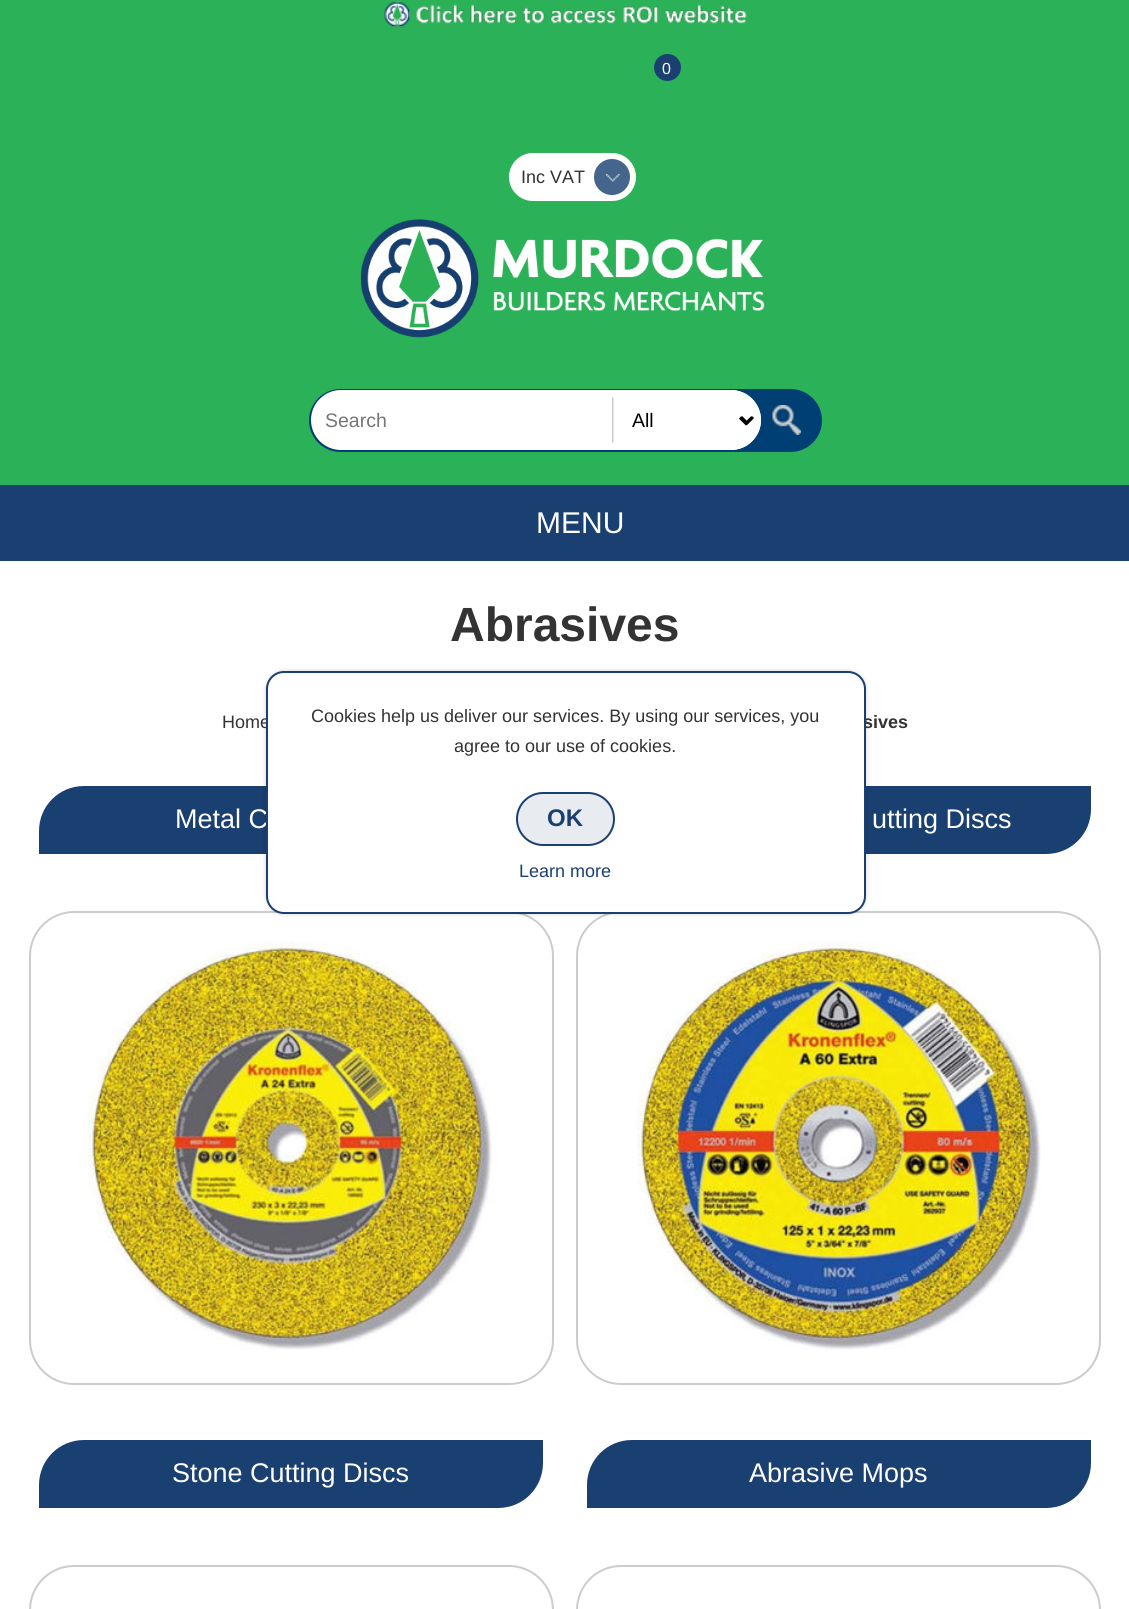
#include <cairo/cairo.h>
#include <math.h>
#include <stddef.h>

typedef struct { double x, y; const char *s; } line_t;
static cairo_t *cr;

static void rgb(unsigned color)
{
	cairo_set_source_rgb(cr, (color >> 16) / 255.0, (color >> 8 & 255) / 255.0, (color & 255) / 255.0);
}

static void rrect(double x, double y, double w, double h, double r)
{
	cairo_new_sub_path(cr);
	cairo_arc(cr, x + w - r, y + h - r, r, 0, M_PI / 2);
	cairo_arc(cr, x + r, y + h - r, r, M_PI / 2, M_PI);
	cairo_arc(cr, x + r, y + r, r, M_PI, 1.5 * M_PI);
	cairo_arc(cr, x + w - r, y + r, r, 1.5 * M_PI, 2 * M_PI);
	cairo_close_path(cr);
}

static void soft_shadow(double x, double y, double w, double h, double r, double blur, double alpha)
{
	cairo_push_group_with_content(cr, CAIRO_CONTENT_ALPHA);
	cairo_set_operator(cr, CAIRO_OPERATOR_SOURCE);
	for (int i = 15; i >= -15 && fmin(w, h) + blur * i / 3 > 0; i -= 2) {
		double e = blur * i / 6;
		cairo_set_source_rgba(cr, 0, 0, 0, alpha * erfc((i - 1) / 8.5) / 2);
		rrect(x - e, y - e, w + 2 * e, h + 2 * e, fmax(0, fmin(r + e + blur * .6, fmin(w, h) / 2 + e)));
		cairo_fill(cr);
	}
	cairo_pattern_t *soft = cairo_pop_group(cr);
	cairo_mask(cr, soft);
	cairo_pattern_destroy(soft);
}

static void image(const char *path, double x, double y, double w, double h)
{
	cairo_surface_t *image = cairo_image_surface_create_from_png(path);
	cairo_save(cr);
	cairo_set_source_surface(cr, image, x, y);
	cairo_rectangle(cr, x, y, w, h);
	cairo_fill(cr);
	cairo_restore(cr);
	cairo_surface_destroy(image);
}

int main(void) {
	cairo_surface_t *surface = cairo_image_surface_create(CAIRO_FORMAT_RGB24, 1129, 1609);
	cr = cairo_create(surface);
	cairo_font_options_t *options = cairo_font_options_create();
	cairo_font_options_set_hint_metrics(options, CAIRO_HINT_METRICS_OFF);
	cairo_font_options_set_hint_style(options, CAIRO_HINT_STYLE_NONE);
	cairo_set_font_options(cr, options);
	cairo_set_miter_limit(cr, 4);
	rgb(0xffffff);
	cairo_paint(cr);
	rgb(0x2bb157);
	cairo_rectangle(cr, 0, 0, 1129, 485);
	cairo_fill(cr);
	image("img/1.png", 384, 1, 363, 27);
	rgb(0x1a3f71);
	cairo_arc(cr, 667.5, 67.5, 13.5, 0, 2 * M_PI);
	cairo_fill(cr);
	rgb(0xffffff);
	rrect(509, 153, 127, 48, 24);
	cairo_fill(cr);
	rgb(0x45658d);
	cairo_arc(cr, 612, 177, 18, 0, 2 * M_PI);
	cairo_fill(cr);
	image("img/2.png", 606, 174, 14, 8);
	image("img/3.png", 360, 219, 405, 119);
	rgb(0x003f73);
	rrect(309, 389, 513, 63, 31.5);
	cairo_fill(cr);
	rgb(0xffffff);
	rrect(311, 390, 450, 60, 30);
	cairo_fill(cr);
	cairo_new_path(cr);
	cairo_move_to(cr, 611, 390);
	cairo_line_to(cr, 731, 390);
	cairo_curve_to(cr, 747.5, 390, 761, 403.5, 761, 420);
	cairo_curve_to(cr, 761, 436.5, 747.5, 450, 731, 450);
	cairo_line_to(cr, 611, 450);
	cairo_close_path(cr);
	cairo_fill(cr);
	image("img/4.png", 612, 397, 142, 46);
	cairo_new_path(cr);
	cairo_move_to(cr, 740, 417.5);
	cairo_line_to(cr, 746, 423.5);
	cairo_line_to(cr, 752, 417.5);
	rgb(0x000000);
	cairo_set_line_width(cr, 3);
	cairo_stroke(cr);
	image("img/5.png", 772, 405, 29, 30);
	rgb(0x1a3f71);
	cairo_rectangle(cr, 0, 485, 1129, 76);
	cairo_fill(cr);
	cairo_new_path(cr);
	cairo_move_to(cr, 84, 786);
	cairo_line_to(cr, 543, 786);
	cairo_line_to(cr, 543, 809);
	cairo_curve_to(cr, 543, 834, 523, 854, 498, 854);
	cairo_line_to(cr, 39, 854);
	cairo_line_to(cr, 39, 831);
	cairo_curve_to(cr, 39, 806, 59, 786, 84, 786);
	cairo_close_path(cr);
	cairo_fill(cr);
	rrect(30, 912, 523, 472, 44);
	rgb(0xcccccc);
	cairo_set_line_width(cr, 2);
	cairo_stroke(cr);
	image("img/6.png", 87, 941, 408, 409);
	rgb(0x1a3f71);
	cairo_new_path(cr);
	cairo_move_to(cr, 632, 786);
	cairo_line_to(cr, 1091, 786);
	cairo_line_to(cr, 1091, 809);
	cairo_curve_to(cr, 1091, 834, 1071, 854, 1046, 854);
	cairo_line_to(cr, 587, 854);
	cairo_line_to(cr, 587, 831);
	cairo_curve_to(cr, 587, 806, 607, 786, 632, 786);
	cairo_close_path(cr);
	cairo_fill(cr);
	rrect(577, 912, 523, 472, 44);
	rgb(0xcccccc);
	cairo_stroke(cr);
	image("img/7.png", 636, 941, 405, 409);
	rgb(0x1a3f71);
	cairo_new_path(cr);
	cairo_move_to(cr, 84, 1440);
	cairo_line_to(cr, 543, 1440);
	cairo_line_to(cr, 543, 1463);
	cairo_curve_to(cr, 543, 1488, 523, 1508, 498, 1508);
	cairo_line_to(cr, 39, 1508);
	cairo_line_to(cr, 39, 1485);
	cairo_curve_to(cr, 39, 1460, 59, 1440, 84, 1440);
	cairo_close_path(cr);
	cairo_fill(cr);
	rrect(30, 1566, 523, 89, 44);
	rgb(0xcccccc);
	cairo_stroke(cr);
	rgb(0x1a3f71);
	cairo_new_path(cr);
	cairo_move_to(cr, 632, 1440);
	cairo_line_to(cr, 1091, 1440);
	cairo_line_to(cr, 1091, 1463);
	cairo_curve_to(cr, 1091, 1488, 1071, 1508, 1046, 1508);
	cairo_line_to(cr, 587, 1508);
	cairo_line_to(cr, 587, 1485);
	cairo_curve_to(cr, 587, 1460, 607, 1440, 632, 1440);
	cairo_close_path(cr);
	cairo_fill(cr);
	rrect(577, 1566, 523, 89, 44);
	rgb(0xcccccc);
	cairo_stroke(cr);
	rgb(0x000000);
	soft_shadow(266, 671, 600, 243, 18, 2, 0.2);
	cairo_select_font_face(cr, "Liberation Sans", CAIRO_FONT_SLANT_NORMAL, CAIRO_FONT_WEIGHT_NORMAL);
	cairo_set_font_size(cr, 16);
	rgb(0xffffff);
	cairo_move_to(cr, 662, 74);
	cairo_show_text(cr, "0");
	cairo_set_font_size(cr, 18);
	rgb(0x333333);
	cairo_move_to(cr, 521, 183);
	cairo_show_text(cr, "Inc VAT");
	cairo_set_font_size(cr, 19.5);
	rgb(0x757575);
	cairo_move_to(cr, 325, 427);
	cairo_show_text(cr, "Search");
	rgb(0x000000);
	cairo_move_to(cr, 632, 427);
	cairo_show_text(cr, "All");
	cairo_set_font_size(cr, 30);
	rgb(0xffffff);
	cairo_move_to(cr, 536, 533);
	cairo_show_text(cr, "MENU");
	cairo_select_font_face(cr, "Liberation Sans", CAIRO_FONT_SLANT_NORMAL, CAIRO_FONT_WEIGHT_BOLD);
	cairo_set_font_size(cr, 48);
	rgb(0x333333);
	cairo_move_to(cr, 450, 641);
	cairo_show_text(cr, "Abrasives");
	cairo_select_font_face(cr, "Liberation Sans", CAIRO_FONT_SLANT_NORMAL, CAIRO_FONT_WEIGHT_NORMAL);
	cairo_set_font_size(cr, 18);
	cairo_move_to(cr, 222, 728);
	cairo_show_text(cr, "Home");
	cairo_select_font_face(cr, "Liberation Sans", CAIRO_FONT_SLANT_NORMAL, CAIRO_FONT_WEIGHT_BOLD);
	cairo_move_to(cr, 863, 728);
	cairo_show_text(cr, "sives");
	cairo_select_font_face(cr, "Liberation Sans", CAIRO_FONT_SLANT_NORMAL, CAIRO_FONT_WEIGHT_NORMAL);
	cairo_set_font_size(cr, 27);
	rgb(0xffffff);
	{
		static const line_t items[] = {
			{175, 828, "Metal C"},
			{872, 828, "utting Discs"},
			{172, 1482, "Stone Cutting Discs"},
			{749, 1482, "Abrasive Mops"},
		};
		for (size_t i = 0; i < sizeof items / sizeof *items; i++) {
			cairo_move_to(cr, items[i].x, items[i].y);
			cairo_show_text(cr, items[i].s);
		}
	}
	rrect(267, 672, 598, 241, 17);
	cairo_fill_preserve(cr);
	rgb(0x1a3f71);
	cairo_stroke(cr);
	cairo_set_font_size(cr, 18);
	rgb(0x333333);
	cairo_move_to(cr, 311, 722);
	cairo_show_text(cr, "Cookies help us deliver our services. By using our services, you");
	cairo_move_to(cr, 454, 752);
	cairo_show_text(cr, "agree to our use of cookies.");
	rgb(0xe8ecf1);
	rrect(517, 793, 97, 52, 26);
	cairo_fill_preserve(cr);
	rgb(0x1a3f71);
	cairo_stroke(cr);
	cairo_select_font_face(cr, "Liberation Sans", CAIRO_FONT_SLANT_NORMAL, CAIRO_FONT_WEIGHT_BOLD);
	cairo_set_font_size(cr, 24);
	cairo_move_to(cr, 547, 826);
	cairo_show_text(cr, "OK");
	cairo_select_font_face(cr, "Liberation Sans", CAIRO_FONT_SLANT_NORMAL, CAIRO_FONT_WEIGHT_NORMAL);
	cairo_set_font_size(cr, 18);
	cairo_move_to(cr, 519, 877);
	cairo_show_text(cr, "Learn more");
	cairo_surface_write_to_png(surface, "page.png");
	cairo_font_options_destroy(options);
	cairo_destroy(cr);
	cairo_surface_destroy(surface);
	return 0;
}
